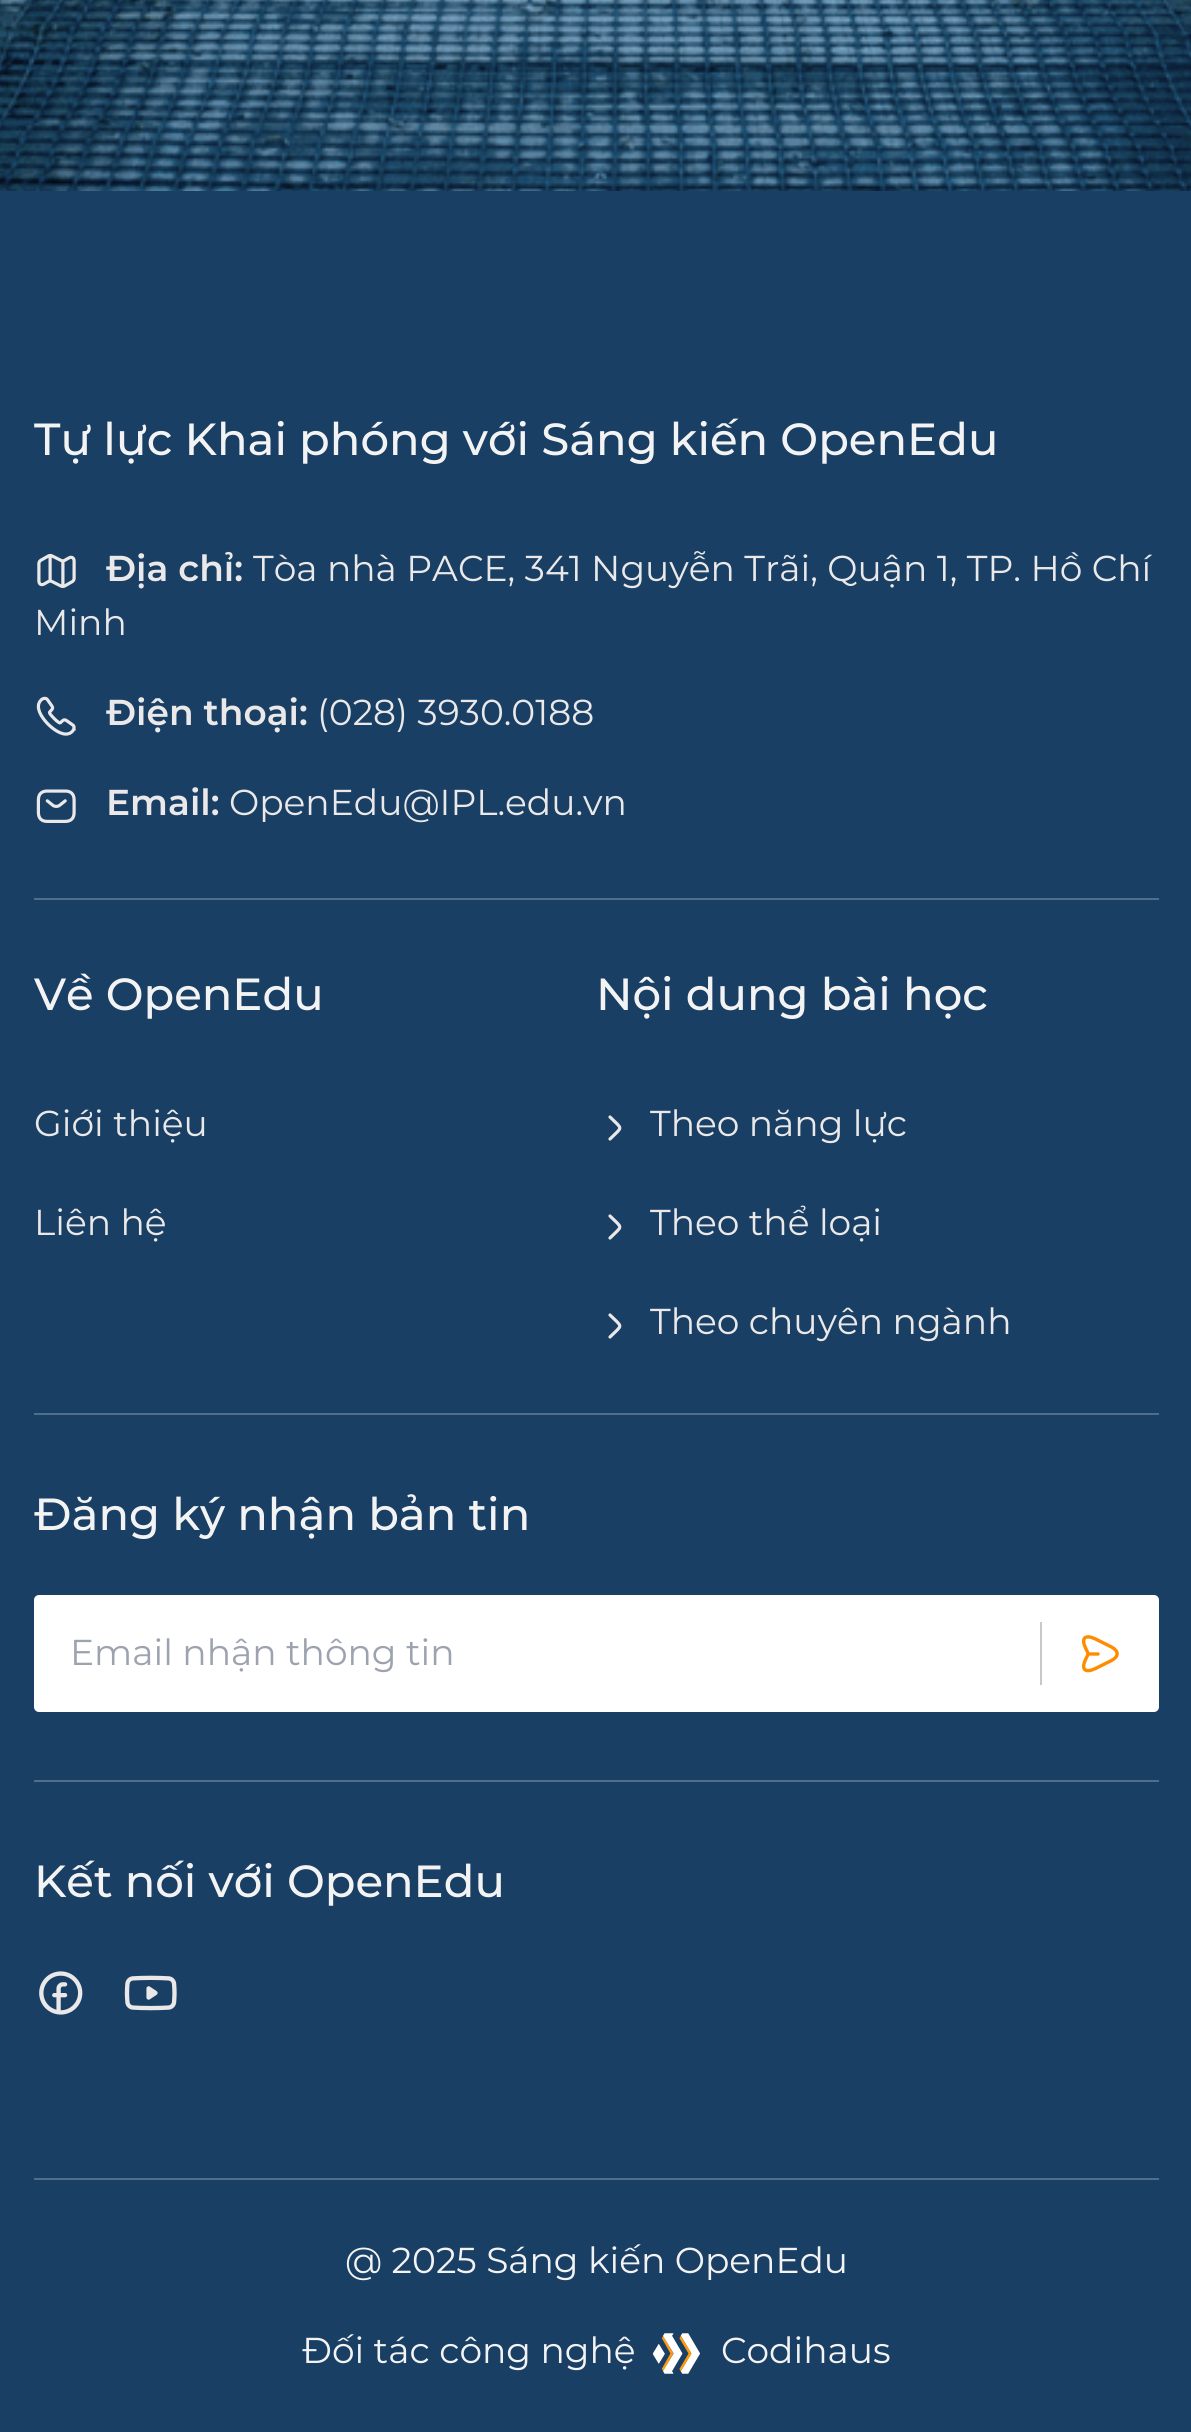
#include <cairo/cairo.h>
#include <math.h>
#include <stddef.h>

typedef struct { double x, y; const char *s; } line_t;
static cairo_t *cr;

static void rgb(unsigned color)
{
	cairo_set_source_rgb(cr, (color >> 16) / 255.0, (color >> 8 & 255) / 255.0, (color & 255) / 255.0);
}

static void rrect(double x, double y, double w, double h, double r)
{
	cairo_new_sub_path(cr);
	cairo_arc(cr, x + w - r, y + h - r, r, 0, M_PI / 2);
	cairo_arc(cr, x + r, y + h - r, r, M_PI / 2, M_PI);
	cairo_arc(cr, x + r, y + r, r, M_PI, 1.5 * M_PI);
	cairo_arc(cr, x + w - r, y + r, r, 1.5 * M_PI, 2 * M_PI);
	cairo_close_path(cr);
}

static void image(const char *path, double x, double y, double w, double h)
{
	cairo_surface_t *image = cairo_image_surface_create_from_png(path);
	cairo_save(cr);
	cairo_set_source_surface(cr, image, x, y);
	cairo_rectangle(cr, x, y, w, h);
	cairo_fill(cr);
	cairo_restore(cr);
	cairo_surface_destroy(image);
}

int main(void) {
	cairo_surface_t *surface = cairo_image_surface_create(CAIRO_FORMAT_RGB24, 1191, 2432);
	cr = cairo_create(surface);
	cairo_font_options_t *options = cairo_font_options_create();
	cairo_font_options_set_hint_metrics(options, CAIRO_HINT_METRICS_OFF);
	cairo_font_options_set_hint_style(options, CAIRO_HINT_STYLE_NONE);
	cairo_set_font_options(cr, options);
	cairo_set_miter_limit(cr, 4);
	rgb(0xffffff);
	cairo_paint(cr);
	image("img/1.png", 0, 0, 1191, 191);
	rgb(0x193f64);
	cairo_rectangle(cr, 0, 191, 1191, 2241);
	cairo_fill(cr);
	rgb(0x506d89);
	cairo_rectangle(cr, 34, 898, 1125, 2);
	cairo_fill(cr);
	image("img/2.png", 37, 553, 39, 35);
	image("img/3.png", 36, 696, 40, 40);
	image("img/4.png", 36, 789, 40, 34);
	cairo_new_path(cr);
	cairo_move_to(cr, 610, 1139);
	cairo_curve_to(cr, 623, 1126, 623, 1130, 610, 1117);
	rgb(0xeae8e8);
	cairo_set_line_width(cr, 3.2);
	cairo_set_line_cap(cr, CAIRO_LINE_CAP_ROUND);
	cairo_set_line_join(cr, CAIRO_LINE_JOIN_ROUND);
	cairo_stroke(cr);
	cairo_new_path(cr);
	cairo_move_to(cr, 610, 1238);
	cairo_curve_to(cr, 623, 1225, 623, 1229, 610, 1216);
	cairo_stroke(cr);
	cairo_new_path(cr);
	cairo_move_to(cr, 610, 1337);
	cairo_curve_to(cr, 623, 1324, 623, 1328, 610, 1315);
	cairo_stroke(cr);
	rgb(0x506d89);
	cairo_rectangle(cr, 34, 1413, 1125, 2);
	cairo_fill(cr);
	rgb(0xffffff);
	rrect(34, 1595, 1125, 117, 5);
	cairo_fill(cr);
	rgb(0xc9c9c9);
	cairo_rectangle(cr, 1040, 1622, 2, 63);
	cairo_fill(cr);
	cairo_new_path(cr);
	cairo_move_to(cr, 1095.5, 1639);
	cairo_line_to(cr, 1111.5, 1647);
	cairo_curve_to(cr, 1119, 1651, 1119, 1656.5, 1111.5, 1660.5);
	cairo_line_to(cr, 1095.5, 1668.5);
	cairo_curve_to(cr, 1085, 1673.5, 1080.5, 1669.5, 1086, 1658.5);
	cairo_line_to(cr, 1087.5, 1655.5);
	cairo_curve_to(cr, 1088, 1654.5, 1088, 1653, 1087.5, 1652);
	cairo_line_to(cr, 1086, 1649);
	cairo_curve_to(cr, 1080.5, 1638, 1085, 1634, 1095.5, 1639);
	cairo_close_path(cr);
	cairo_move_to(cr, 1088, 1654);
	cairo_line_to(cr, 1098, 1654);
	rgb(0xff8c00);
	cairo_set_line_width(cr, 3.4);
	cairo_stroke(cr);
	rgb(0x506d89);
	cairo_rectangle(cr, 34, 1780, 1125, 2);
	cairo_fill(cr);
	image("img/5.png", 39, 1971, 44, 44);
	image("img/6.png", 124, 1975, 53, 36);
	cairo_rectangle(cr, 34, 2178, 1125, 2);
	cairo_fill(cr);
	image("img/7.png", 653, 2333, 47, 41);
	cairo_select_font_face(cr, "Montserrat Medium", CAIRO_FONT_SLANT_NORMAL, CAIRO_FONT_WEIGHT_NORMAL);
	cairo_set_font_size(cr, 45);
	rgb(0xf3f3f3);
	cairo_move_to(cr, 34, 455);
	cairo_show_text(cr, "Tự lực Khai phóng với Sáng kiến OpenEdu");
	cairo_select_font_face(cr, "Montserrat SemiBold", CAIRO_FONT_SLANT_NORMAL, CAIRO_FONT_WEIGHT_NORMAL);
	cairo_set_font_size(cr, 36);
	rgb(0xeae8e8);
	cairo_move_to(cr, 106, 581);
	cairo_show_text(cr, "Địa chỉ:");
	cairo_select_font_face(cr, "Montserrat", CAIRO_FONT_SLANT_NORMAL, CAIRO_FONT_WEIGHT_NORMAL);
	cairo_move_to(cr, 253, 581);
	cairo_show_text(cr, "Tòa nhà PACE, 341 Nguyễn Trãi, Quận 1, TP. Hồ Chí");
	cairo_move_to(cr, 34, 635);
	cairo_show_text(cr, "Minh");
	cairo_select_font_face(cr, "Montserrat SemiBold", CAIRO_FONT_SLANT_NORMAL, CAIRO_FONT_WEIGHT_NORMAL);
	cairo_move_to(cr, 106, 725);
	cairo_show_text(cr, "Điện thoại:");
	cairo_select_font_face(cr, "Montserrat", CAIRO_FONT_SLANT_NORMAL, CAIRO_FONT_WEIGHT_NORMAL);
	cairo_move_to(cr, 317, 725);
	cairo_show_text(cr, "(028) 3930.0188");
	cairo_select_font_face(cr, "Montserrat SemiBold", CAIRO_FONT_SLANT_NORMAL, CAIRO_FONT_WEIGHT_NORMAL);
	cairo_move_to(cr, 106, 815);
	cairo_show_text(cr, "Email:");
	cairo_select_font_face(cr, "Montserrat", CAIRO_FONT_SLANT_NORMAL, CAIRO_FONT_WEIGHT_NORMAL);
	cairo_move_to(cr, 229, 815);
	cairo_show_text(cr, "OpenEdu@IPL.edu.vn");
	cairo_select_font_face(cr, "Montserrat Medium", CAIRO_FONT_SLANT_NORMAL, CAIRO_FONT_WEIGHT_NORMAL);
	cairo_set_font_size(cr, 45);
	rgb(0xf3f3f3);
	cairo_move_to(cr, 34, 1010);
	cairo_show_text(cr, "Về OpenEdu");
	cairo_select_font_face(cr, "Montserrat", CAIRO_FONT_SLANT_NORMAL, CAIRO_FONT_WEIGHT_NORMAL);
	cairo_set_font_size(cr, 36);
	rgb(0xeae8e8);
	cairo_move_to(cr, 34, 1136);
	cairo_show_text(cr, "Giới thiệu");
	cairo_move_to(cr, 34, 1235);
	cairo_show_text(cr, "Liên hệ");
	cairo_select_font_face(cr, "Montserrat Medium", CAIRO_FONT_SLANT_NORMAL, CAIRO_FONT_WEIGHT_NORMAL);
	cairo_set_font_size(cr, 45);
	rgb(0xf3f3f3);
	cairo_move_to(cr, 596, 1010);
	cairo_show_text(cr, "Nội dung bài học");
	cairo_select_font_face(cr, "Montserrat", CAIRO_FONT_SLANT_NORMAL, CAIRO_FONT_WEIGHT_NORMAL);
	cairo_set_font_size(cr, 36);
	rgb(0xeae8e8);
	{
		static const line_t items[] = {
			{650, 1136, "Theo năng lực"},
			{650, 1235, "Theo thể loại"},
			{650, 1334, "Theo chuyên ngành"},
		};
		for (size_t i = 0; i < sizeof items / sizeof *items; i++) {
			cairo_move_to(cr, items[i].x, items[i].y);
			cairo_show_text(cr, items[i].s);
		}
	}
	cairo_select_font_face(cr, "Montserrat Medium", CAIRO_FONT_SLANT_NORMAL, CAIRO_FONT_WEIGHT_NORMAL);
	cairo_set_font_size(cr, 45);
	rgb(0xf3f3f3);
	cairo_move_to(cr, 34, 1530);
	cairo_show_text(cr, "Đăng ký nhận bản tin");
	cairo_select_font_face(cr, "Montserrat", CAIRO_FONT_SLANT_NORMAL, CAIRO_FONT_WEIGHT_NORMAL);
	cairo_set_font_size(cr, 36);
	rgb(0x9ca3af);
	cairo_move_to(cr, 70, 1665);
	cairo_show_text(cr, "Email nhận thông tin");
	cairo_select_font_face(cr, "Montserrat Medium", CAIRO_FONT_SLANT_NORMAL, CAIRO_FONT_WEIGHT_NORMAL);
	cairo_set_font_size(cr, 45);
	rgb(0xf3f3f3);
	cairo_move_to(cr, 34, 1897);
	cairo_show_text(cr, "Kết nối với OpenEdu");
	cairo_select_font_face(cr, "Montserrat", CAIRO_FONT_SLANT_NORMAL, CAIRO_FONT_WEIGHT_NORMAL);
	cairo_set_font_size(cr, 36);
	{
		static const line_t items[] = {
			{345, 2273, "@ 2025 Sáng kiến OpenEdu"},
			{302, 2363, "Đối tác công nghệ"},
			{721, 2363, "Codihaus"},
		};
		for (size_t i = 0; i < sizeof items / sizeof *items; i++) {
			cairo_move_to(cr, items[i].x, items[i].y);
			cairo_show_text(cr, items[i].s);
		}
	}
	cairo_surface_write_to_png(surface, "page.png");
	cairo_font_options_destroy(options);
	cairo_destroy(cr);
	cairo_surface_destroy(surface);
	return 0;
}
